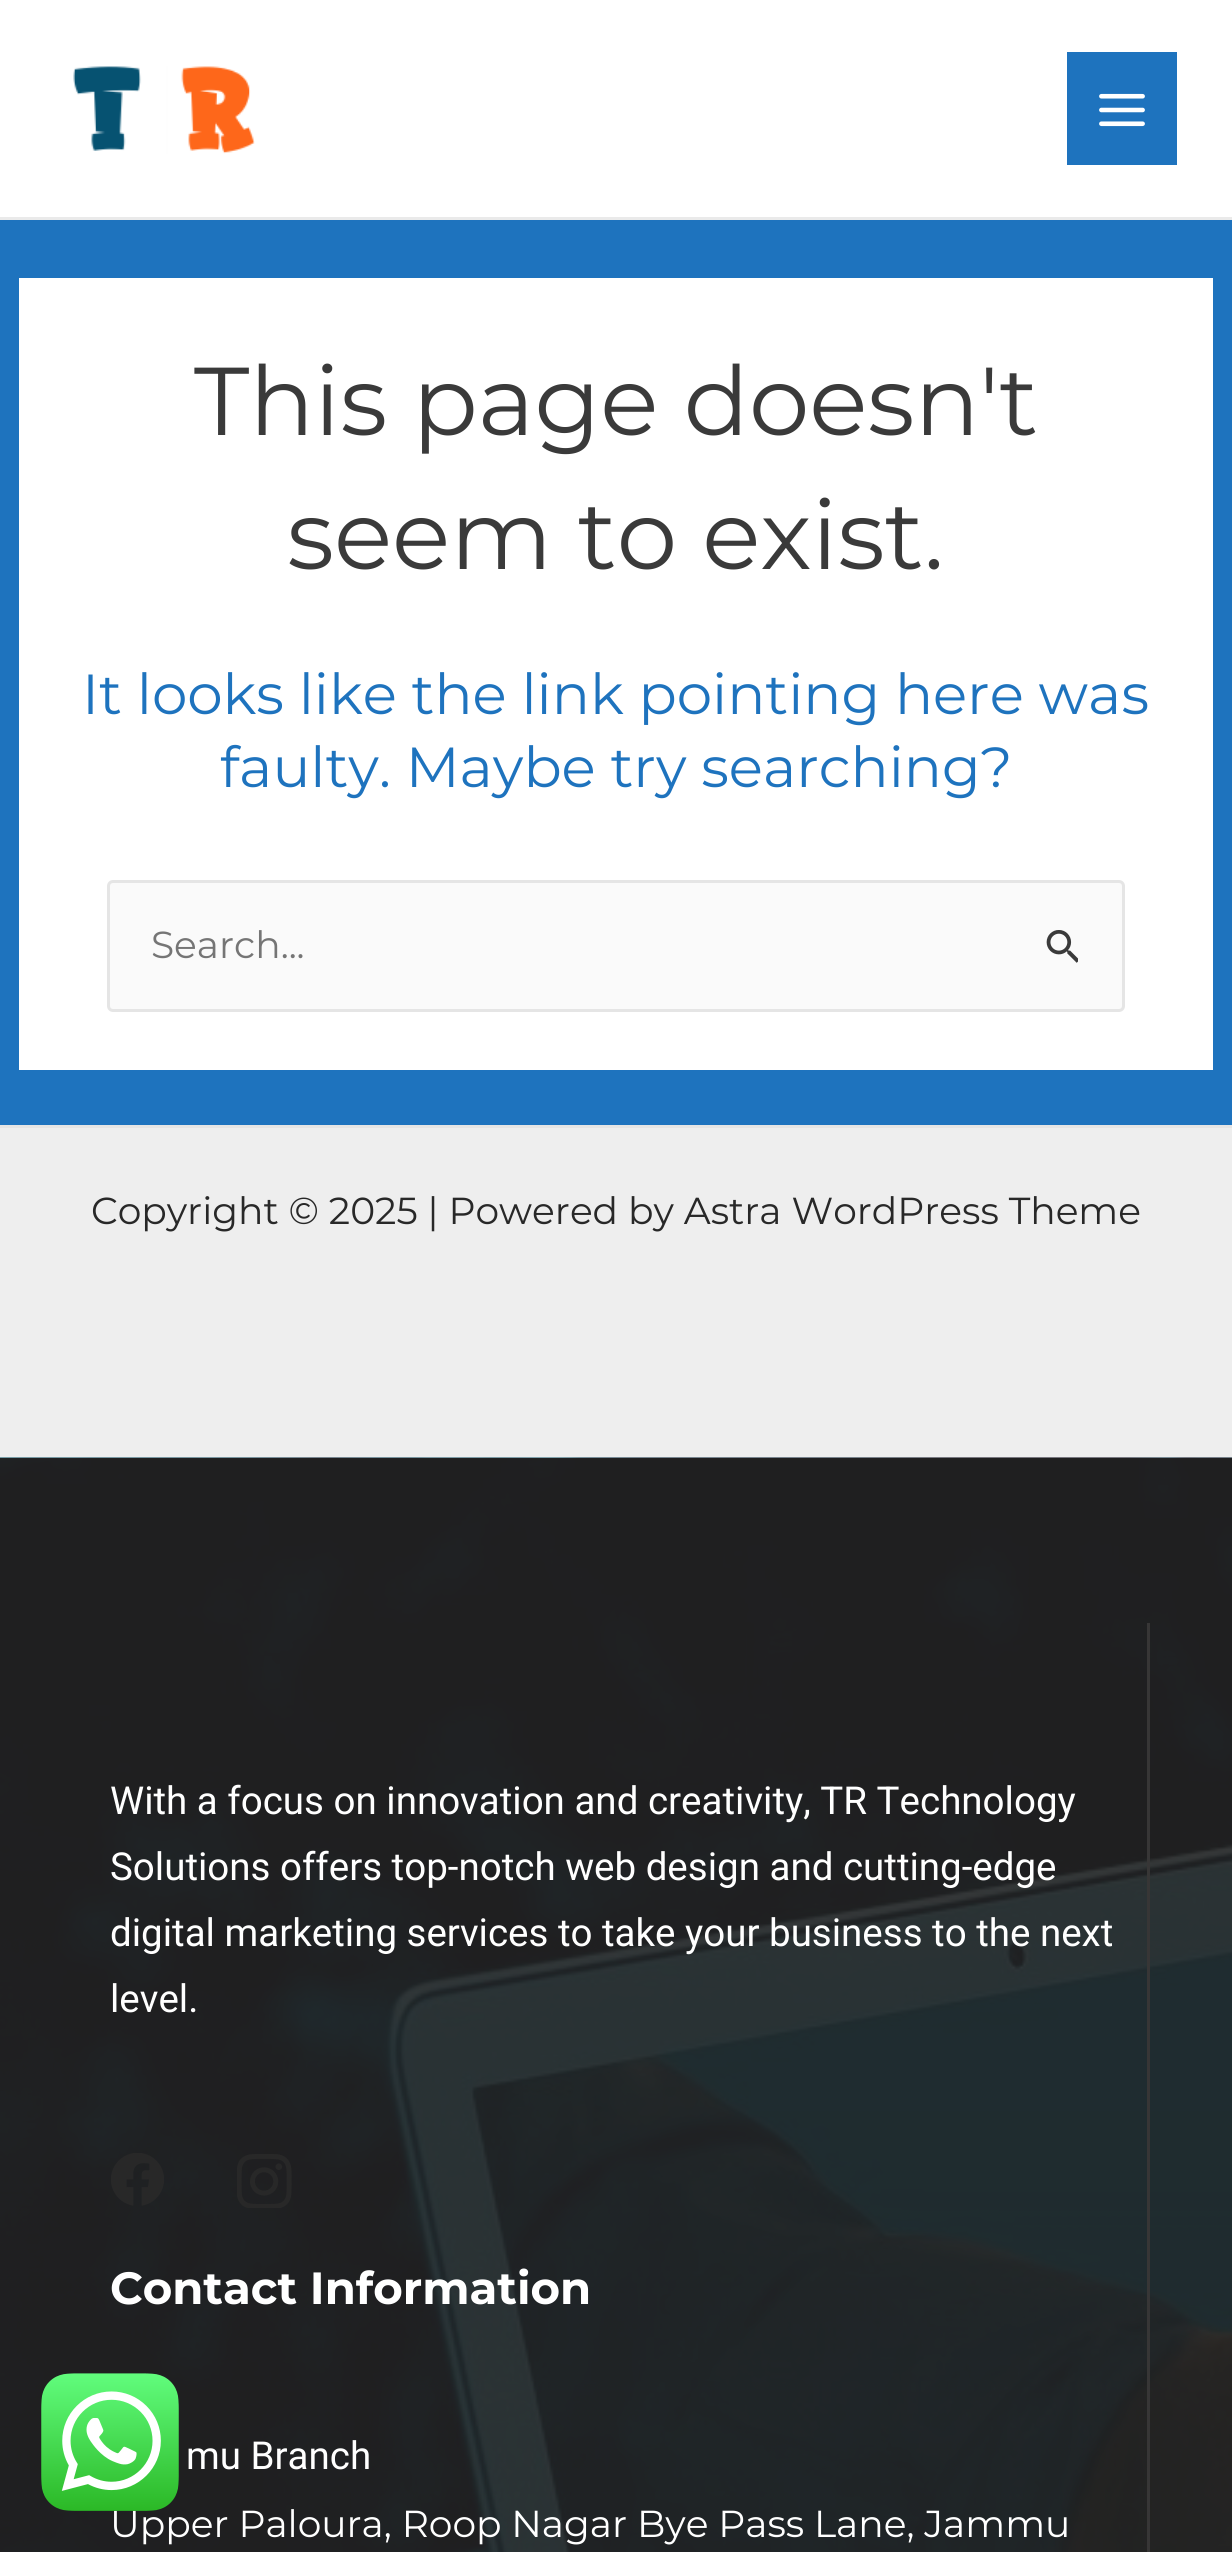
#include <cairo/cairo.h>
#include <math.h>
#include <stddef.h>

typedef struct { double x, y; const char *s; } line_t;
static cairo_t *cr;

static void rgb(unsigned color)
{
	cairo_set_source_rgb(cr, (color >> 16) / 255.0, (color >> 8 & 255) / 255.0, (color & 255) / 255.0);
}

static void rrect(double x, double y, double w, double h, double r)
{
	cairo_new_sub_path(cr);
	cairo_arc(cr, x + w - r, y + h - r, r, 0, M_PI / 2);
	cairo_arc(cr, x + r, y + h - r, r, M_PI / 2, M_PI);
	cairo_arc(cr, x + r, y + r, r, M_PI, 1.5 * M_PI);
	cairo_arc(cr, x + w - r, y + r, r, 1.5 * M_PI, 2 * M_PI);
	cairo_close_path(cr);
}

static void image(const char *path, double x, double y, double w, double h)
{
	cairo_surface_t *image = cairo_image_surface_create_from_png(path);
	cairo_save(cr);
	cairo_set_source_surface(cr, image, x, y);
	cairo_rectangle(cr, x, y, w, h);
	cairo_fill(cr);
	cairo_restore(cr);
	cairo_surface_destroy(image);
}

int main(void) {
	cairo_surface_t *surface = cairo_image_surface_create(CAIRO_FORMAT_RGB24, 1232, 2552);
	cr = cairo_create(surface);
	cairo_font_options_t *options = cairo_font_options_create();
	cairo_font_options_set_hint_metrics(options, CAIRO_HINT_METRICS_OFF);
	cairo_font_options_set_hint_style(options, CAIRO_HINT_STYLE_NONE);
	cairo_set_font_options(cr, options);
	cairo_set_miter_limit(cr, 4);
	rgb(0x1e73be);
	cairo_paint(cr);
	rgb(0xffffff);
	cairo_rectangle(cr, 0, 0, 1232, 217);
	cairo_fill(cr);
	rgb(0xeaeaea);
	cairo_rectangle(cr, 0, 217, 1232, 3);
	cairo_fill(cr);
	image("img/1.png", 73, 66, 182, 88);
	rgb(0x1e73be);
	cairo_rectangle(cr, 1067, 52, 110, 113);
	cairo_fill(cr);
	image("img/2.png", 1099, 93, 46, 34);
	rgb(0xffffff);
	cairo_rectangle(cr, 19, 278, 1194, 792);
	cairo_fill(cr);
	rgb(0xfafafa);
	rrect(108.5, 881.5, 1015, 129, 4.5);
	cairo_fill_preserve(cr);
	rgb(0xe5e5e5);
	cairo_set_line_width(cr, 3);
	cairo_stroke(cr);
	image("img/3.png", 1046, 930, 32, 33);
	rgb(0xeeeeee);
	cairo_rectangle(cr, 0, 1128, 1232, 330);
	cairo_fill(cr);
	rgb(0xe5e5e5);
	cairo_rectangle(cr, 0, 1125, 1232, 3);
	cairo_fill(cr);
	image("img/4.png", 0, 1457, 1232, 1095);
	rgb(0x373636);
	cairo_rectangle(cr, 1147, 1623, 3, 929);
	cairo_fill(cr);
	image("img/5.png", 111, 2153, 53, 53);
	image("img/6.png", 237, 2154, 55, 54);
	cairo_select_font_face(cr, "Montserrat", CAIRO_FONT_SLANT_NORMAL, CAIRO_FONT_WEIGHT_NORMAL);
	cairo_set_font_size(cr, 96.25);
	rgb(0x3a3a3a);
	cairo_move_to(cr, 194, 435);
	cairo_show_text(cr, "This page doesn't");
	cairo_move_to(cr, 287, 569);
	cairo_show_text(cr, "seem to exist.");
	cairo_set_font_size(cr, 56.4);
	rgb(0x1e73be);
	cairo_move_to(cr, 82, 714);
	cairo_show_text(cr, "It looks like the link pointing here was");
	cairo_move_to(cr, 220, 787);
	cairo_show_text(cr, "faulty. Maybe try searching?");
	cairo_set_font_size(cr, 37.6);
	rgb(0x757575);
	cairo_move_to(cr, 151, 958);
	cairo_show_text(cr, "Search...");
	rgb(0x282828);
	cairo_move_to(cr, 91, 1224);
	cairo_show_text(cr, "Copyright © 2025 | Powered by Astra WordPress Theme");
	cairo_select_font_face(cr, "Roboto", CAIRO_FONT_SLANT_NORMAL, CAIRO_FONT_WEIGHT_NORMAL);
	cairo_set_font_size(cr, 38.5);
	rgb(0xffffff);
	{
		static const line_t items[] = {
			{110, 1814, "With a focus on innovation and creativity, TR Technology"},
			{110, 1880, "Solutions offers top-notch web design and cutting-edge"},
			{110, 1946, "digital marketing services to take your business to the next"},
			{110, 2012, "level."},
		};
		for (size_t i = 0; i < sizeof items / sizeof *items; i++) {
			cairo_move_to(cr, items[i].x, items[i].y);
			cairo_show_text(cr, items[i].s);
		}
	}
	cairo_select_font_face(cr, "Montserrat", CAIRO_FONT_SLANT_NORMAL, CAIRO_FONT_WEIGHT_BOLD);
	cairo_set_font_size(cr, 45.1);
	cairo_move_to(cr, 110, 2304);
	cairo_show_text(cr, "Contact Information");
	cairo_select_font_face(cr, "Roboto", CAIRO_FONT_SLANT_NORMAL, CAIRO_FONT_WEIGHT_NORMAL);
	cairo_set_font_size(cr, 38.5);
	cairo_move_to(cr, 186, 2469);
	cairo_show_text(cr, "mu Branch");
	cairo_select_font_face(cr, "Montserrat", CAIRO_FONT_SLANT_NORMAL, CAIRO_FONT_WEIGHT_NORMAL);
	cairo_set_font_size(cr, 37.6);
	cairo_move_to(cr, 110, 2537);
	cairo_show_text(cr, "Upper Paloura, Roop Nagar Bye Pass Lane, Jammu");
	image("img/7.png", 41, 2373, 138, 138);
	cairo_surface_write_to_png(surface, "page.png");
	cairo_font_options_destroy(options);
	cairo_destroy(cr);
	cairo_surface_destroy(surface);
	return 0;
}
